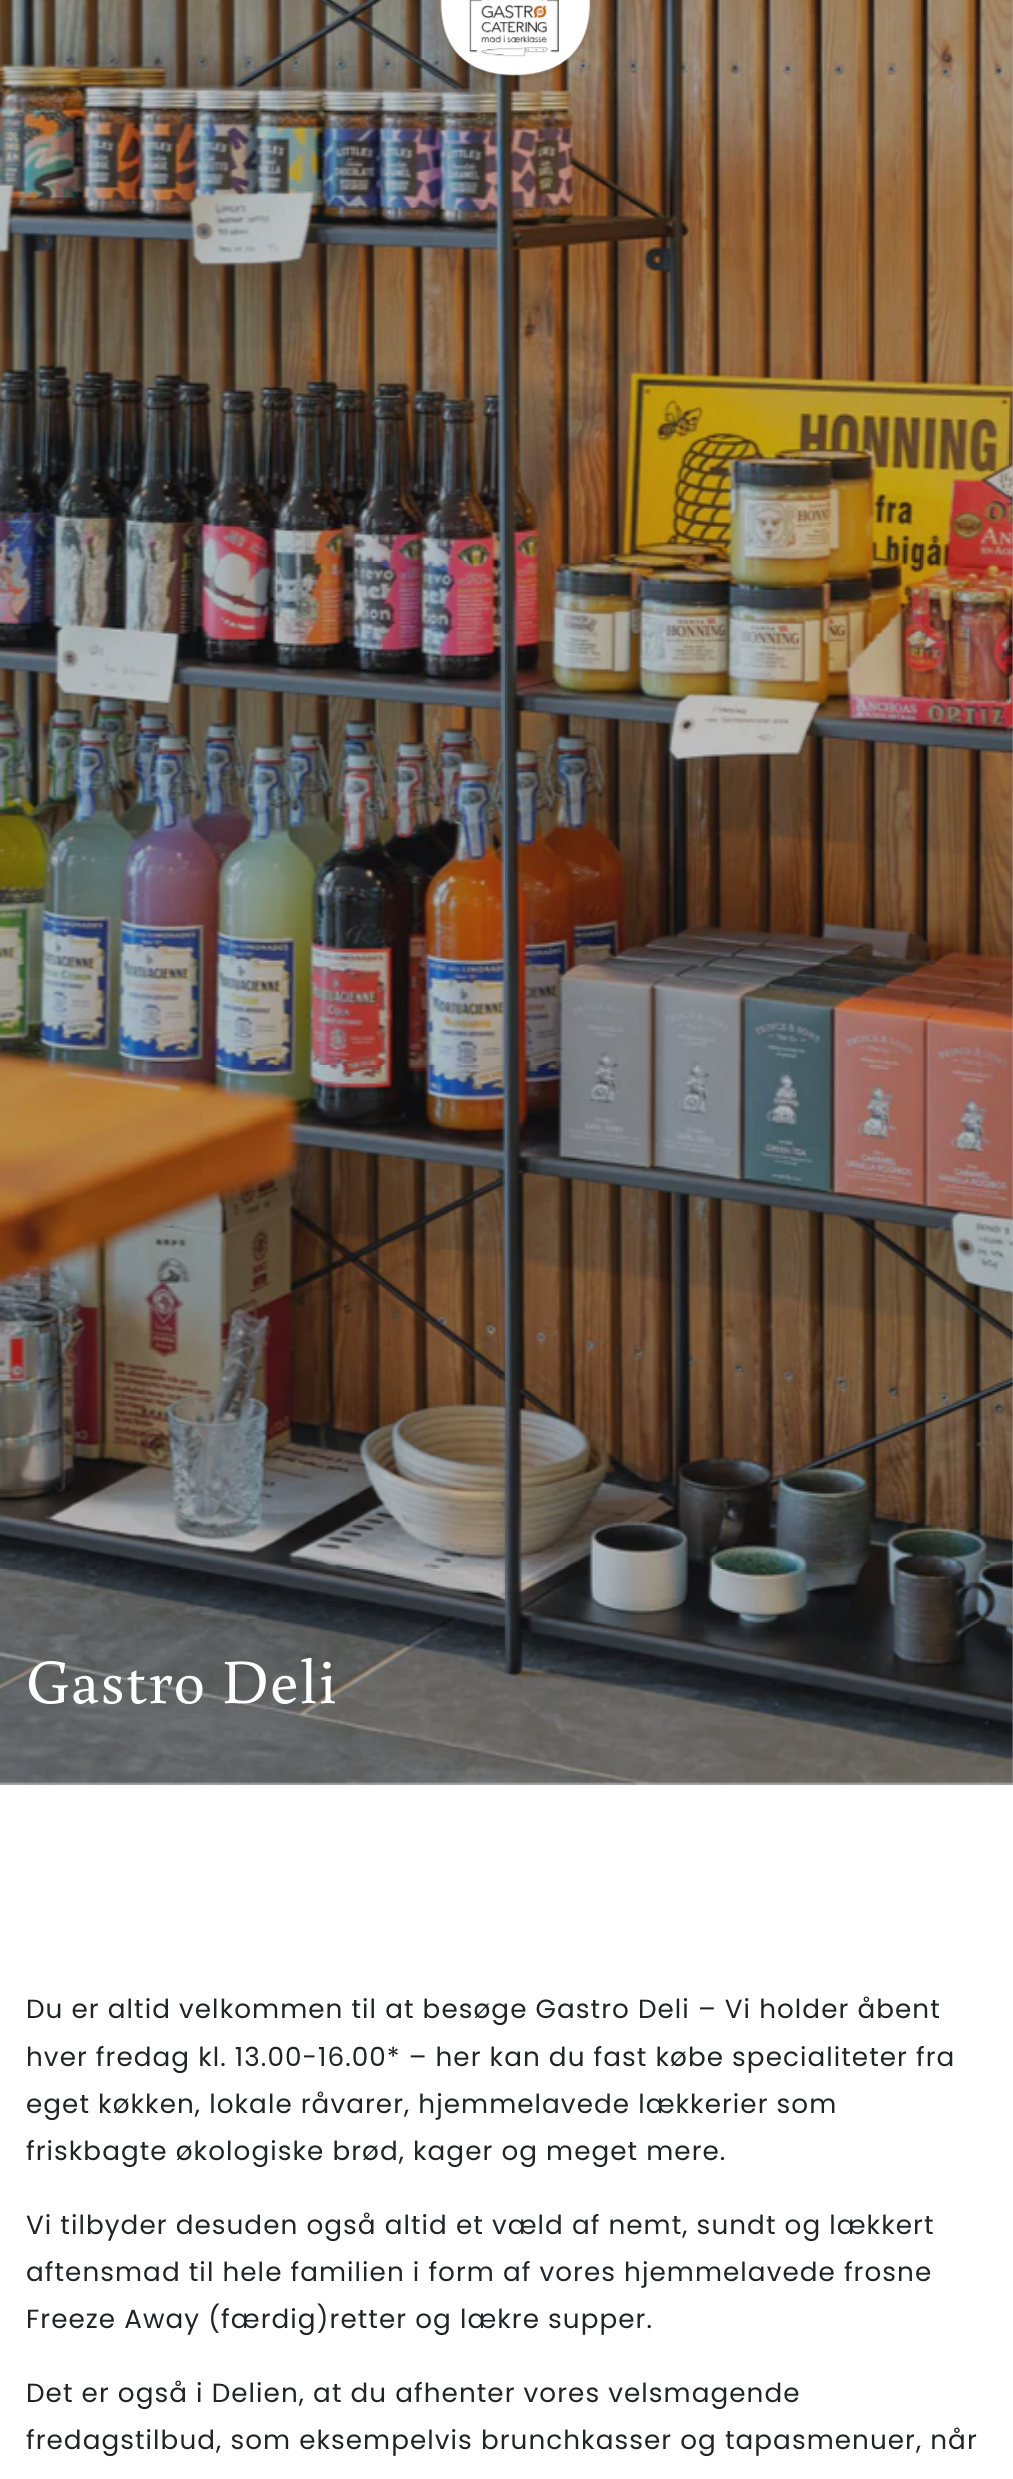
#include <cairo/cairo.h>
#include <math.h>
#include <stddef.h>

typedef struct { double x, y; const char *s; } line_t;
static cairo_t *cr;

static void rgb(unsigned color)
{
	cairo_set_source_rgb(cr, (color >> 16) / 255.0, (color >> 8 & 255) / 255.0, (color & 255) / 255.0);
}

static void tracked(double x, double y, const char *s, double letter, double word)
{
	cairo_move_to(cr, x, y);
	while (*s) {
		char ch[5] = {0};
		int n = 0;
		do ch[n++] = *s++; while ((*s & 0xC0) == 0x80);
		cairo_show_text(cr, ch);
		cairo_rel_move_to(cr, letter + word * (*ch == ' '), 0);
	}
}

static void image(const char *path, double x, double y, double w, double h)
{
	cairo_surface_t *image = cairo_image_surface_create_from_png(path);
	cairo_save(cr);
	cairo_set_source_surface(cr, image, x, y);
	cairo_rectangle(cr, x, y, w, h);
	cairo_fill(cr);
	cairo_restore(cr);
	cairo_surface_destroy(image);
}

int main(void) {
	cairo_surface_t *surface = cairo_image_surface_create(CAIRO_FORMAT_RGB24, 1013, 2479);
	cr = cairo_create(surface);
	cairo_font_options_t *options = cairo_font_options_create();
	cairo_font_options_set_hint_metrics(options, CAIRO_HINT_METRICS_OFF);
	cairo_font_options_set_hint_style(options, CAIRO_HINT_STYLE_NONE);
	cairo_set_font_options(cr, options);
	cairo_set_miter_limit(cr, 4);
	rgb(0xffffff);
	cairo_paint(cr);
	rgb(0xb8b9ba);
	cairo_rectangle(cr, 0, 0, 1013, 1785);
	cairo_fill(cr);
	image("img/2.png", 0, 0, 1013, 1785);
	image("img/1.png", 440, 0, 151, 80);
	cairo_select_font_face(cr, "Buenard", CAIRO_FONT_SLANT_NORMAL, CAIRO_FONT_WEIGHT_NORMAL);
	cairo_set_font_size(cr, 63);
	rgb(0xffffff);
	tracked(26, 1703, "Gastro Deli", 1.25, 0);
	cairo_select_font_face(cr, "Poppins", CAIRO_FONT_SLANT_NORMAL, CAIRO_FONT_WEIGHT_NORMAL);
	cairo_set_font_size(cr, 26.25);
	rgb(0x212326);
	{
		static const line_t items[] = {
			{26, 2018, "Du er altid velkommen til at besøge Gastro Deli – Vi holder åbent"},
			{26, 2066, "hver fredag kl. 13.00-16.00* – her kan du fast købe specialiteter fra"},
			{26, 2113, "eget køkken, lokale råvarer, hjemmelavede lækkerier som"},
			{26, 2160, "friskbagte økologiske brød, kager og meget mere."},
			{26, 2234, "Vi tilbyder desuden også altid et væld af nemt, sundt og lækkert"},
			{26, 2281, "aftensmad til hele familien i form af vores hjemmelavede frosne"},
			{26, 2328, "Freeze Away (færdig)retter og lækre supper."},
			{26, 2402, "Det er også i Delien, at du afhenter vores velsmagende"},
			{26, 2449, "fredagstilbud, som eksempelvis brunchkasser og tapasmenuer, når"},
		};
		for (size_t i = 0; i < sizeof items / sizeof *items; i++) {
			tracked(items[i].x, items[i].y, items[i].s, 1.05, 0);
		}
	}
	cairo_surface_write_to_png(surface, "page.png");
	cairo_font_options_destroy(options);
	cairo_destroy(cr);
	cairo_surface_destroy(surface);
	return 0;
}
